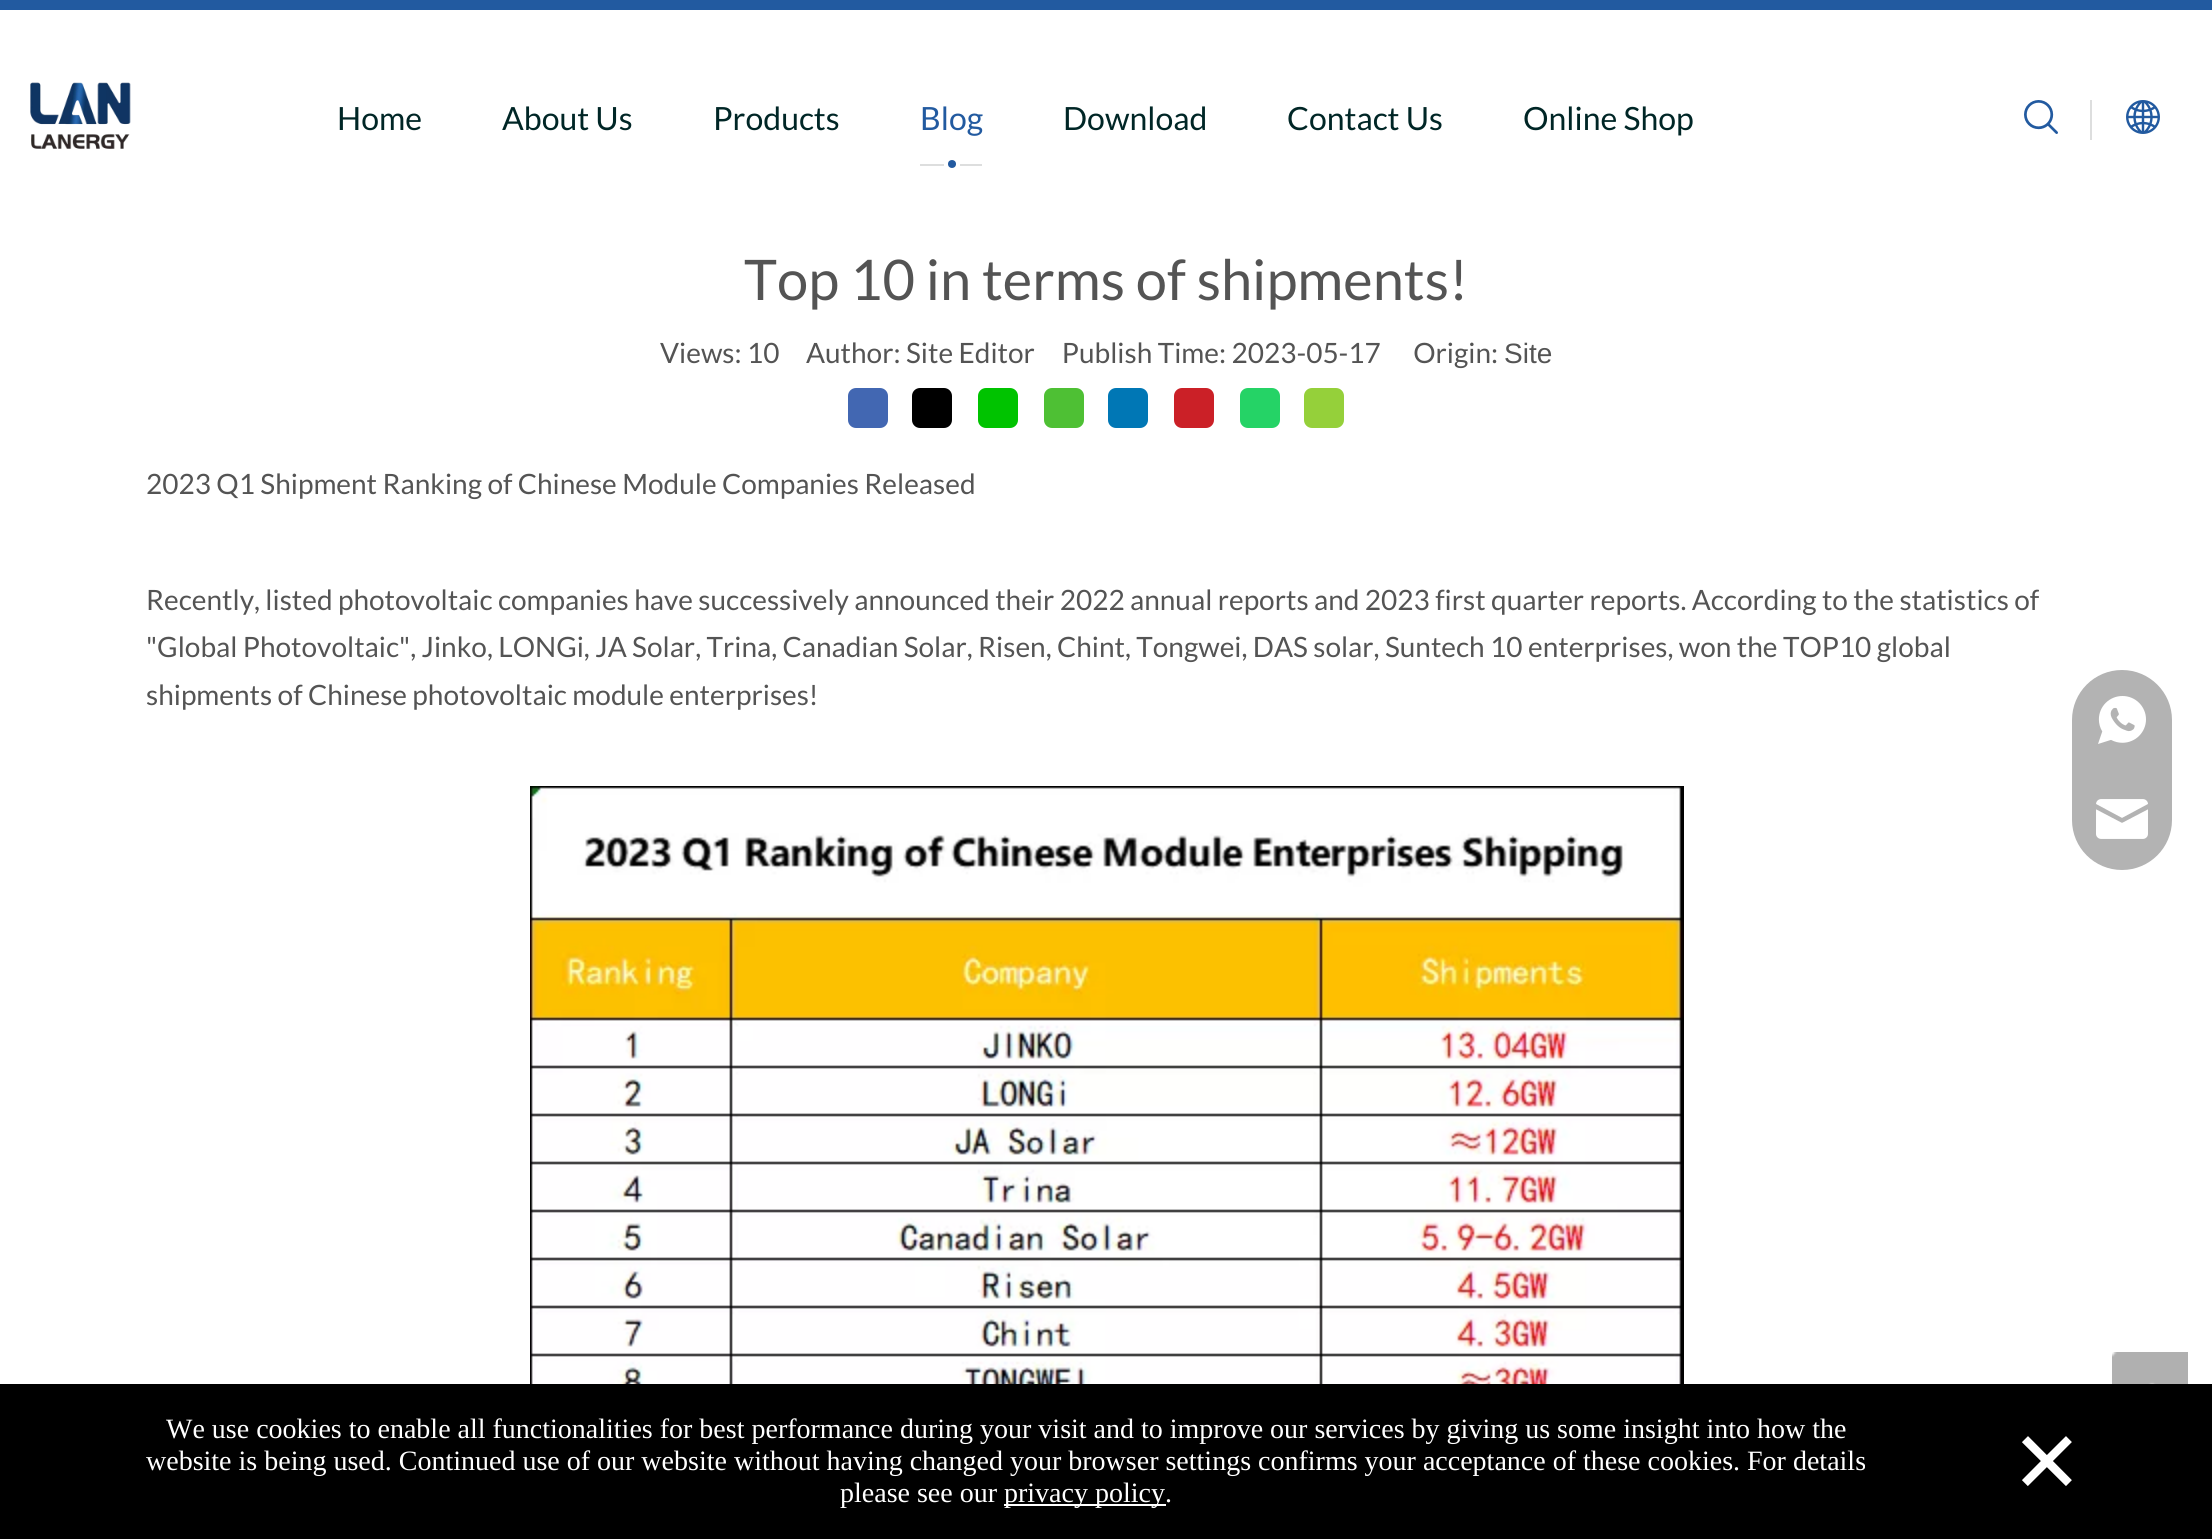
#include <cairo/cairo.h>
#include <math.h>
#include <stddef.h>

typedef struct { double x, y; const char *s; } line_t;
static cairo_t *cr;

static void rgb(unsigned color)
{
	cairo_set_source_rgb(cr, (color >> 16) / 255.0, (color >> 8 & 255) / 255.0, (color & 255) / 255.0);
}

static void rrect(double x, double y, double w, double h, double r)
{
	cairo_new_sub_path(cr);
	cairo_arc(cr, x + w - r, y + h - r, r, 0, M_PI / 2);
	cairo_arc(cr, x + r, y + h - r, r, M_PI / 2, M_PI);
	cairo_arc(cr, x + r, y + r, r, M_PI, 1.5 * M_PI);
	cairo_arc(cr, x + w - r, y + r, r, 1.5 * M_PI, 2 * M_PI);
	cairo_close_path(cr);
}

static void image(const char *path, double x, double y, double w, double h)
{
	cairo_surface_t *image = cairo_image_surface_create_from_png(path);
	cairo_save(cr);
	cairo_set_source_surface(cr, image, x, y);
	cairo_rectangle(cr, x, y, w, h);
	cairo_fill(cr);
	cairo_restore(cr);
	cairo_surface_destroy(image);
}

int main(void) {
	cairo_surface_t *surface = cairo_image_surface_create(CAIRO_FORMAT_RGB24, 2212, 1539);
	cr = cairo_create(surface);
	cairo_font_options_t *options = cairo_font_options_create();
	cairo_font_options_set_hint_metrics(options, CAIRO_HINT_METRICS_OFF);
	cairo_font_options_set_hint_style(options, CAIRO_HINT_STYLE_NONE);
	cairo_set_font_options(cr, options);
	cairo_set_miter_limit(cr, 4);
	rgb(0xffffff);
	cairo_paint(cr);
	rgb(0x225aa0);
	cairo_rectangle(cr, 0, 0, 2212, 10);
	cairo_fill(cr);
	image("img/1.png", 30, 82, 101, 67);
	rgb(0xdddede);
	cairo_rectangle(cr, 920, 164, 24, 2);
	cairo_fill(cr);
	rgb(0x225aa0);
	cairo_arc(cr, 952, 164, 4, 0, 2 * M_PI);
	cairo_fill(cr);
	rgb(0xdddede);
	cairo_rectangle(cr, 960, 164, 22, 2);
	cairo_fill(cr);
	cairo_rectangle(cr, 2090, 100, 2, 40);
	cairo_fill(cr);
	image("img/2.png", 2024, 100, 34, 34);
	image("img/3.png", 2126, 100, 34, 34);
	rgb(0x4267b2);
	rrect(848, 388, 40, 40, 8);
	cairo_fill(cr);
	rgb(0x000000);
	rrect(912, 388, 40, 40, 8);
	cairo_fill(cr);
	rgb(0x00c300);
	rrect(978, 388, 40, 40, 8);
	cairo_fill(cr);
	rgb(0x4ec034);
	rrect(1044, 388, 40, 40, 8);
	cairo_fill(cr);
	rgb(0x0077b5);
	rrect(1108, 388, 40, 40, 8);
	cairo_fill(cr);
	rgb(0xcb2027);
	rrect(1174, 388, 40, 40, 8);
	cairo_fill(cr);
	rgb(0x25d366);
	rrect(1240, 388, 40, 40, 8);
	cairo_fill(cr);
	rgb(0x95d03a);
	rrect(1304, 388, 40, 40, 8);
	cairo_fill(cr);
	image("img/4.png", 530, 786, 1154, 598);
	rgb(0xb3b3b3);
	rrect(2072, 670, 100, 200, 50);
	cairo_fill(cr);
	image("img/5.png", 2098, 696, 48, 48);
	image("img/6.png", 2096, 799, 52, 40);
	image("img/7.png", 2112, 1352, 76, 32);
	rgb(0x000000);
	cairo_rectangle(cr, 0, 1384, 2212, 155);
	cairo_fill(cr);
	rgb(0xffffff);
	cairo_rectangle(cr, 1004, 1504, 162, 2);
	cairo_fill(cr);
	cairo_select_font_face(cr, "Lato", CAIRO_FONT_SLANT_NORMAL, CAIRO_FONT_WEIGHT_NORMAL);
	cairo_set_font_size(cr, 32);
	rgb(0x002626);
	{
		static const line_t items[] = {
			{337, 130, "Home"},
			{502, 130, "About Us"},
			{713, 130, "Products"},
		};
		for (size_t i = 0; i < sizeof items / sizeof *items; i++) {
			cairo_move_to(cr, items[i].x, items[i].y);
			cairo_show_text(cr, items[i].s);
		}
	}
	rgb(0x225aa0);
	cairo_move_to(cr, 920, 130);
	cairo_show_text(cr, "Blog");
	rgb(0x002626);
	{
		static const line_t items[] = {
			{1063, 130, "Download"},
			{1287, 130, "Contact Us"},
			{1523, 130, "Online Shop"},
		};
		for (size_t i = 0; i < sizeof items / sizeof *items; i++) {
			cairo_move_to(cr, items[i].x, items[i].y);
			cairo_show_text(cr, items[i].s);
		}
	}
	cairo_set_font_size(cr, 56);
	rgb(0x545454);
	cairo_move_to(cr, 744, 300);
	cairo_show_text(cr, "Top 10 in terms of shipments!");
	cairo_set_font_size(cr, 28);
	cairo_move_to(cr, 660, 363);
	cairo_show_text(cr, "Views: 10");
	cairo_move_to(cr, 806, 363);
	cairo_show_text(cr, "Author: Site Editor     Publish Time: 2023-05-17      Origin:");
	cairo_select_font_face(cr, "Liberation Sans", CAIRO_FONT_SLANT_NORMAL, CAIRO_FONT_WEIGHT_NORMAL);
	cairo_move_to(cr, 1504, 363);
	cairo_show_text(cr, "Site");
	cairo_select_font_face(cr, "Lato", CAIRO_FONT_SLANT_NORMAL, CAIRO_FONT_WEIGHT_NORMAL);
	{
		static const line_t items[] = {
			{146, 494, "2023 Q1 Shipment Ranking of Chinese Module Companies Released"},
			{146, 610, "Recently, listed photovoltaic companies have successively announced their 2022 annual reports and 2023 first quarter reports. According to the statistics of"},
			{146, 657, "\"Global Photovoltaic\", Jinko, LONGi, JA Solar, Trina, Canadian Solar, Risen, Chint, Tongwei, DAS solar, Suntech 10 enterprises, won the TOP10 global"},
			{146, 705, "shipments of Chinese photovoltaic module enterprises!"},
		};
		for (size_t i = 0; i < sizeof items / sizeof *items; i++) {
			cairo_move_to(cr, items[i].x, items[i].y);
			cairo_show_text(cr, items[i].s);
		}
	}
	cairo_select_font_face(cr, "Liberation Serif", CAIRO_FONT_SLANT_NORMAL, CAIRO_FONT_WEIGHT_NORMAL);
	rgb(0xffffff);
	{
		static const line_t items[] = {
			{166, 1438, "We use cookies to enable all functionalities for best performance during your visit and to improve our services by giving us some insight into how the"},
			{146, 1470, "website is being used. Continued use of our website without having changed your browser settings confirms your acceptance of these cookies. For details"},
			{840, 1502, "please see our"},
			{1004, 1502, "privacy policy."},
		};
		for (size_t i = 0; i < sizeof items / sizeof *items; i++) {
			cairo_move_to(cr, items[i].x, items[i].y);
			cairo_show_text(cr, items[i].s);
		}
	}
	cairo_select_font_face(cr, "Liberation Serif", CAIRO_FONT_SLANT_NORMAL, CAIRO_FONT_WEIGHT_BOLD);
	cairo_set_font_size(cr, 120);
	cairo_move_to(cr, 2013, 1501);
	cairo_show_text(cr, "×");
	cairo_surface_write_to_png(surface, "page.png");
	cairo_font_options_destroy(options);
	cairo_destroy(cr);
	cairo_surface_destroy(surface);
	return 0;
}
